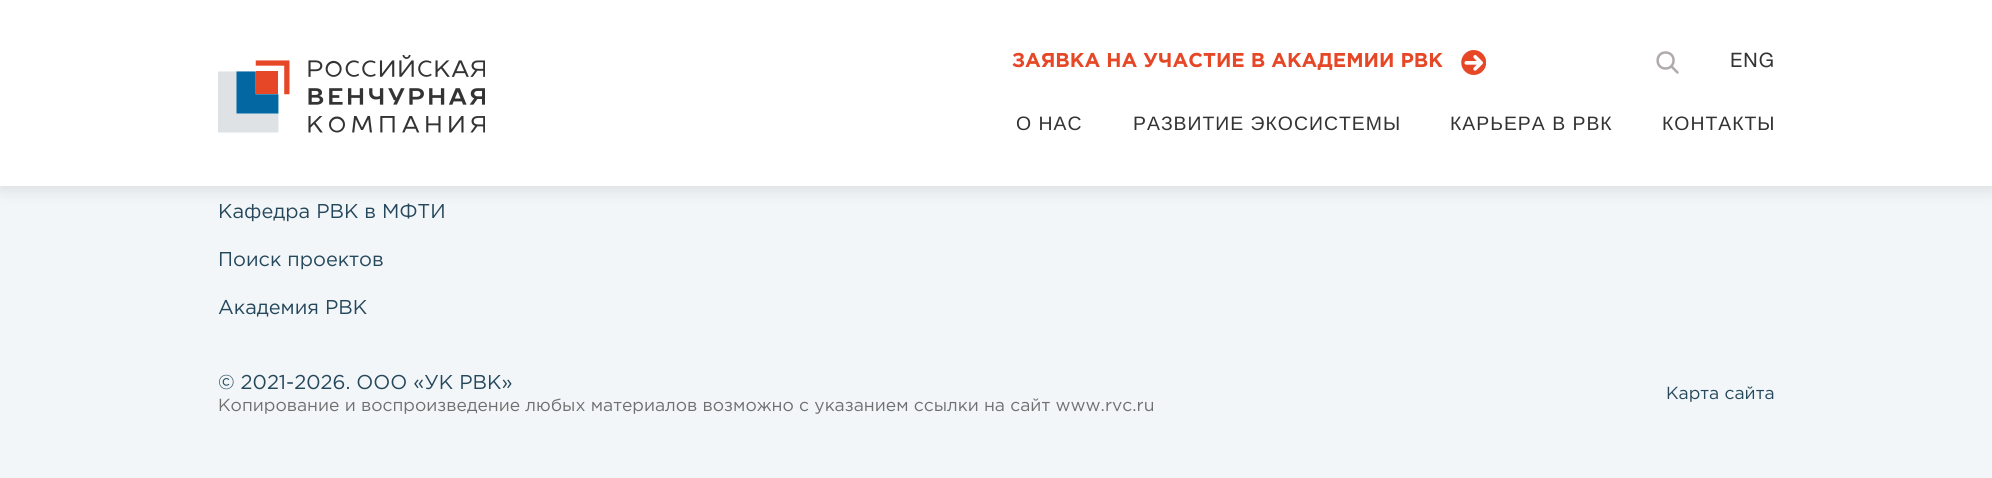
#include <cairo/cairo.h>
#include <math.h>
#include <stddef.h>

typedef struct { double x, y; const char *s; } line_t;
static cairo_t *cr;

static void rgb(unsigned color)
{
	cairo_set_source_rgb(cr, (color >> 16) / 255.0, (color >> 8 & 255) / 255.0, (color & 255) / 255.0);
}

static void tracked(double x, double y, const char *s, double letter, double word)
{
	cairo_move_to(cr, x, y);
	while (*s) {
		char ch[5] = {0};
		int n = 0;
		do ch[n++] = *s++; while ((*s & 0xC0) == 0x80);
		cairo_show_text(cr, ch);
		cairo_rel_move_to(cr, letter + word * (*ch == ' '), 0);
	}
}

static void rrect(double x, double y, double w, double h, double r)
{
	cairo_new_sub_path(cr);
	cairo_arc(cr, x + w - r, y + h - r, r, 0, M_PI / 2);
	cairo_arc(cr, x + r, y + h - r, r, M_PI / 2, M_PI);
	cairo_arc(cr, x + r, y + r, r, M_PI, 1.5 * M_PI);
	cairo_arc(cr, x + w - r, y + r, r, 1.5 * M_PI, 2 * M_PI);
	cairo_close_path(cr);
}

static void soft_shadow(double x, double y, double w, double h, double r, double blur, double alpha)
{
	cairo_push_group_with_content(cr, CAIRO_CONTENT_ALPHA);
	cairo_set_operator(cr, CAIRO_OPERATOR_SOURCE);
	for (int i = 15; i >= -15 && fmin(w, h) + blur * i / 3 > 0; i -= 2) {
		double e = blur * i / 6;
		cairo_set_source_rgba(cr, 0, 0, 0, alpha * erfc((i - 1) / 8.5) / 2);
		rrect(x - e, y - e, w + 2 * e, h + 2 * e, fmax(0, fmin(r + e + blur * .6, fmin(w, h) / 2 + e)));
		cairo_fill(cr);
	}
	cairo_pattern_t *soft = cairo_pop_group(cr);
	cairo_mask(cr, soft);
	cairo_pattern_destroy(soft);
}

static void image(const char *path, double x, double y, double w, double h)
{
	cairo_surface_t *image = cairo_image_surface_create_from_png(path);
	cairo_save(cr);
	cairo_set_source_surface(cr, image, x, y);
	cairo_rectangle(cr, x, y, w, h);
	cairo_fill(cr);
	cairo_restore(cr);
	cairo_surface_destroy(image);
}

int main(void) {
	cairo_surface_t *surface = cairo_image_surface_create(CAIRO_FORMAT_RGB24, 1992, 478);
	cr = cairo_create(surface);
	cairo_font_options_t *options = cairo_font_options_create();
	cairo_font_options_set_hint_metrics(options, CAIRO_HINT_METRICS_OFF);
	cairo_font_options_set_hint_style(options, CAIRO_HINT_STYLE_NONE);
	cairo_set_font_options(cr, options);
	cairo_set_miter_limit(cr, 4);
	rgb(0xf2f6f8);
	cairo_paint(cr);
	rgb(0x000000);
	soft_shadow(0, 4, 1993, 186, 0, 7.5, 0.1);
	rgb(0xffffff);
	cairo_rectangle(cr, 0, 0, 1992, 186);
	cairo_fill(cr);
	image("img/1.png", 218, 55, 267, 78);
	image("img/2.png", 1461, 50, 25, 25);
	cairo_new_path(cr);
	cairo_move_to(cr, 1671.5, 66.5);
	cairo_line_to(cr, 1677.5, 72.5);
	rgb(0xb0aaaa);
	cairo_set_line_width(cr, 2.5);
	cairo_set_line_cap(cr, CAIRO_LINE_CAP_ROUND);
	cairo_set_line_join(cr, CAIRO_LINE_JOIN_ROUND);
	cairo_stroke(cr);
	cairo_new_path(cr);
	cairo_move_to(cr, 1665.5, 52.5);
	cairo_curve_to(cr, 1676.5, 52.5, 1676, 68.5, 1665.5, 68.5);
	cairo_curve_to(cr, 1655, 68.5, 1655, 52.5, 1665.5, 52.5);
	cairo_close_path(cr);
	cairo_set_line_cap(cr, CAIRO_LINE_CAP_BUTT);
	cairo_set_line_join(cr, CAIRO_LINE_JOIN_MITER);
	cairo_stroke(cr);
	cairo_select_font_face(cr, "Gotham", CAIRO_FONT_SLANT_NORMAL, CAIRO_FONT_WEIGHT_BOLD);
	cairo_set_font_size(cr, 20);
	rgb(0xe64727);
	cairo_move_to(cr, 1012, 67);
	cairo_show_text(cr, "ЗАЯВКА НА УЧАСТИЕ В АКАДЕМИИ РВК");
	cairo_select_font_face(cr, "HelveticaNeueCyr", CAIRO_FONT_SLANT_NORMAL, CAIRO_FONT_WEIGHT_NORMAL);
	rgb(0x333333);
	tracked(1730, 67, "ENG", 1, 0);
	cairo_select_font_face(cr, "Liberation Sans", CAIRO_FONT_SLANT_NORMAL, CAIRO_FONT_WEIGHT_NORMAL);
	cairo_set_font_size(cr, 19.4);
	{
		static const line_t items[] = {
			{1016, 130, "О НАС"},
			{1133, 130, "РАЗВИТИЕ ЭКОСИСТЕМЫ"},
			{1450, 130, "КАРЬЕРА В РВК"},
			{1662, 130, "КОНТАКТЫ"},
		};
		for (size_t i = 0; i < sizeof items / sizeof *items; i++) {
			tracked(items[i].x, items[i].y, items[i].s, 1, 0);
		}
	}
	cairo_select_font_face(cr, "Gotham", CAIRO_FONT_SLANT_NORMAL, CAIRO_FONT_WEIGHT_NORMAL);
	cairo_set_font_size(cr, 20);
	rgb(0x26485c);
	{
		static const line_t items[] = {
			{218, 218, "Кафедра РВК в МФТИ"},
			{218, 266, "Поиск проектов"},
			{218, 314, "Академия РВК"},
			{218, 389, "© 2021-2026. ООО «УК РВК»"},
		};
		for (size_t i = 0; i < sizeof items / sizeof *items; i++) {
			cairo_move_to(cr, items[i].x, items[i].y);
			cairo_show_text(cr, items[i].s);
		}
	}
	cairo_set_font_size(cr, 17.5);
	rgb(0x707070);
	cairo_move_to(cr, 218, 411);
	cairo_show_text(cr, "Копирование и воспроизведение любых материалов возможно с указанием ссылки на сайт www.rvc.ru");
	rgb(0x26485c);
	cairo_move_to(cr, 1666, 399);
	cairo_show_text(cr, "Карта сайта");
	cairo_surface_write_to_png(surface, "page.png");
	cairo_font_options_destroy(options);
	cairo_destroy(cr);
	cairo_surface_destroy(surface);
	return 0;
}
